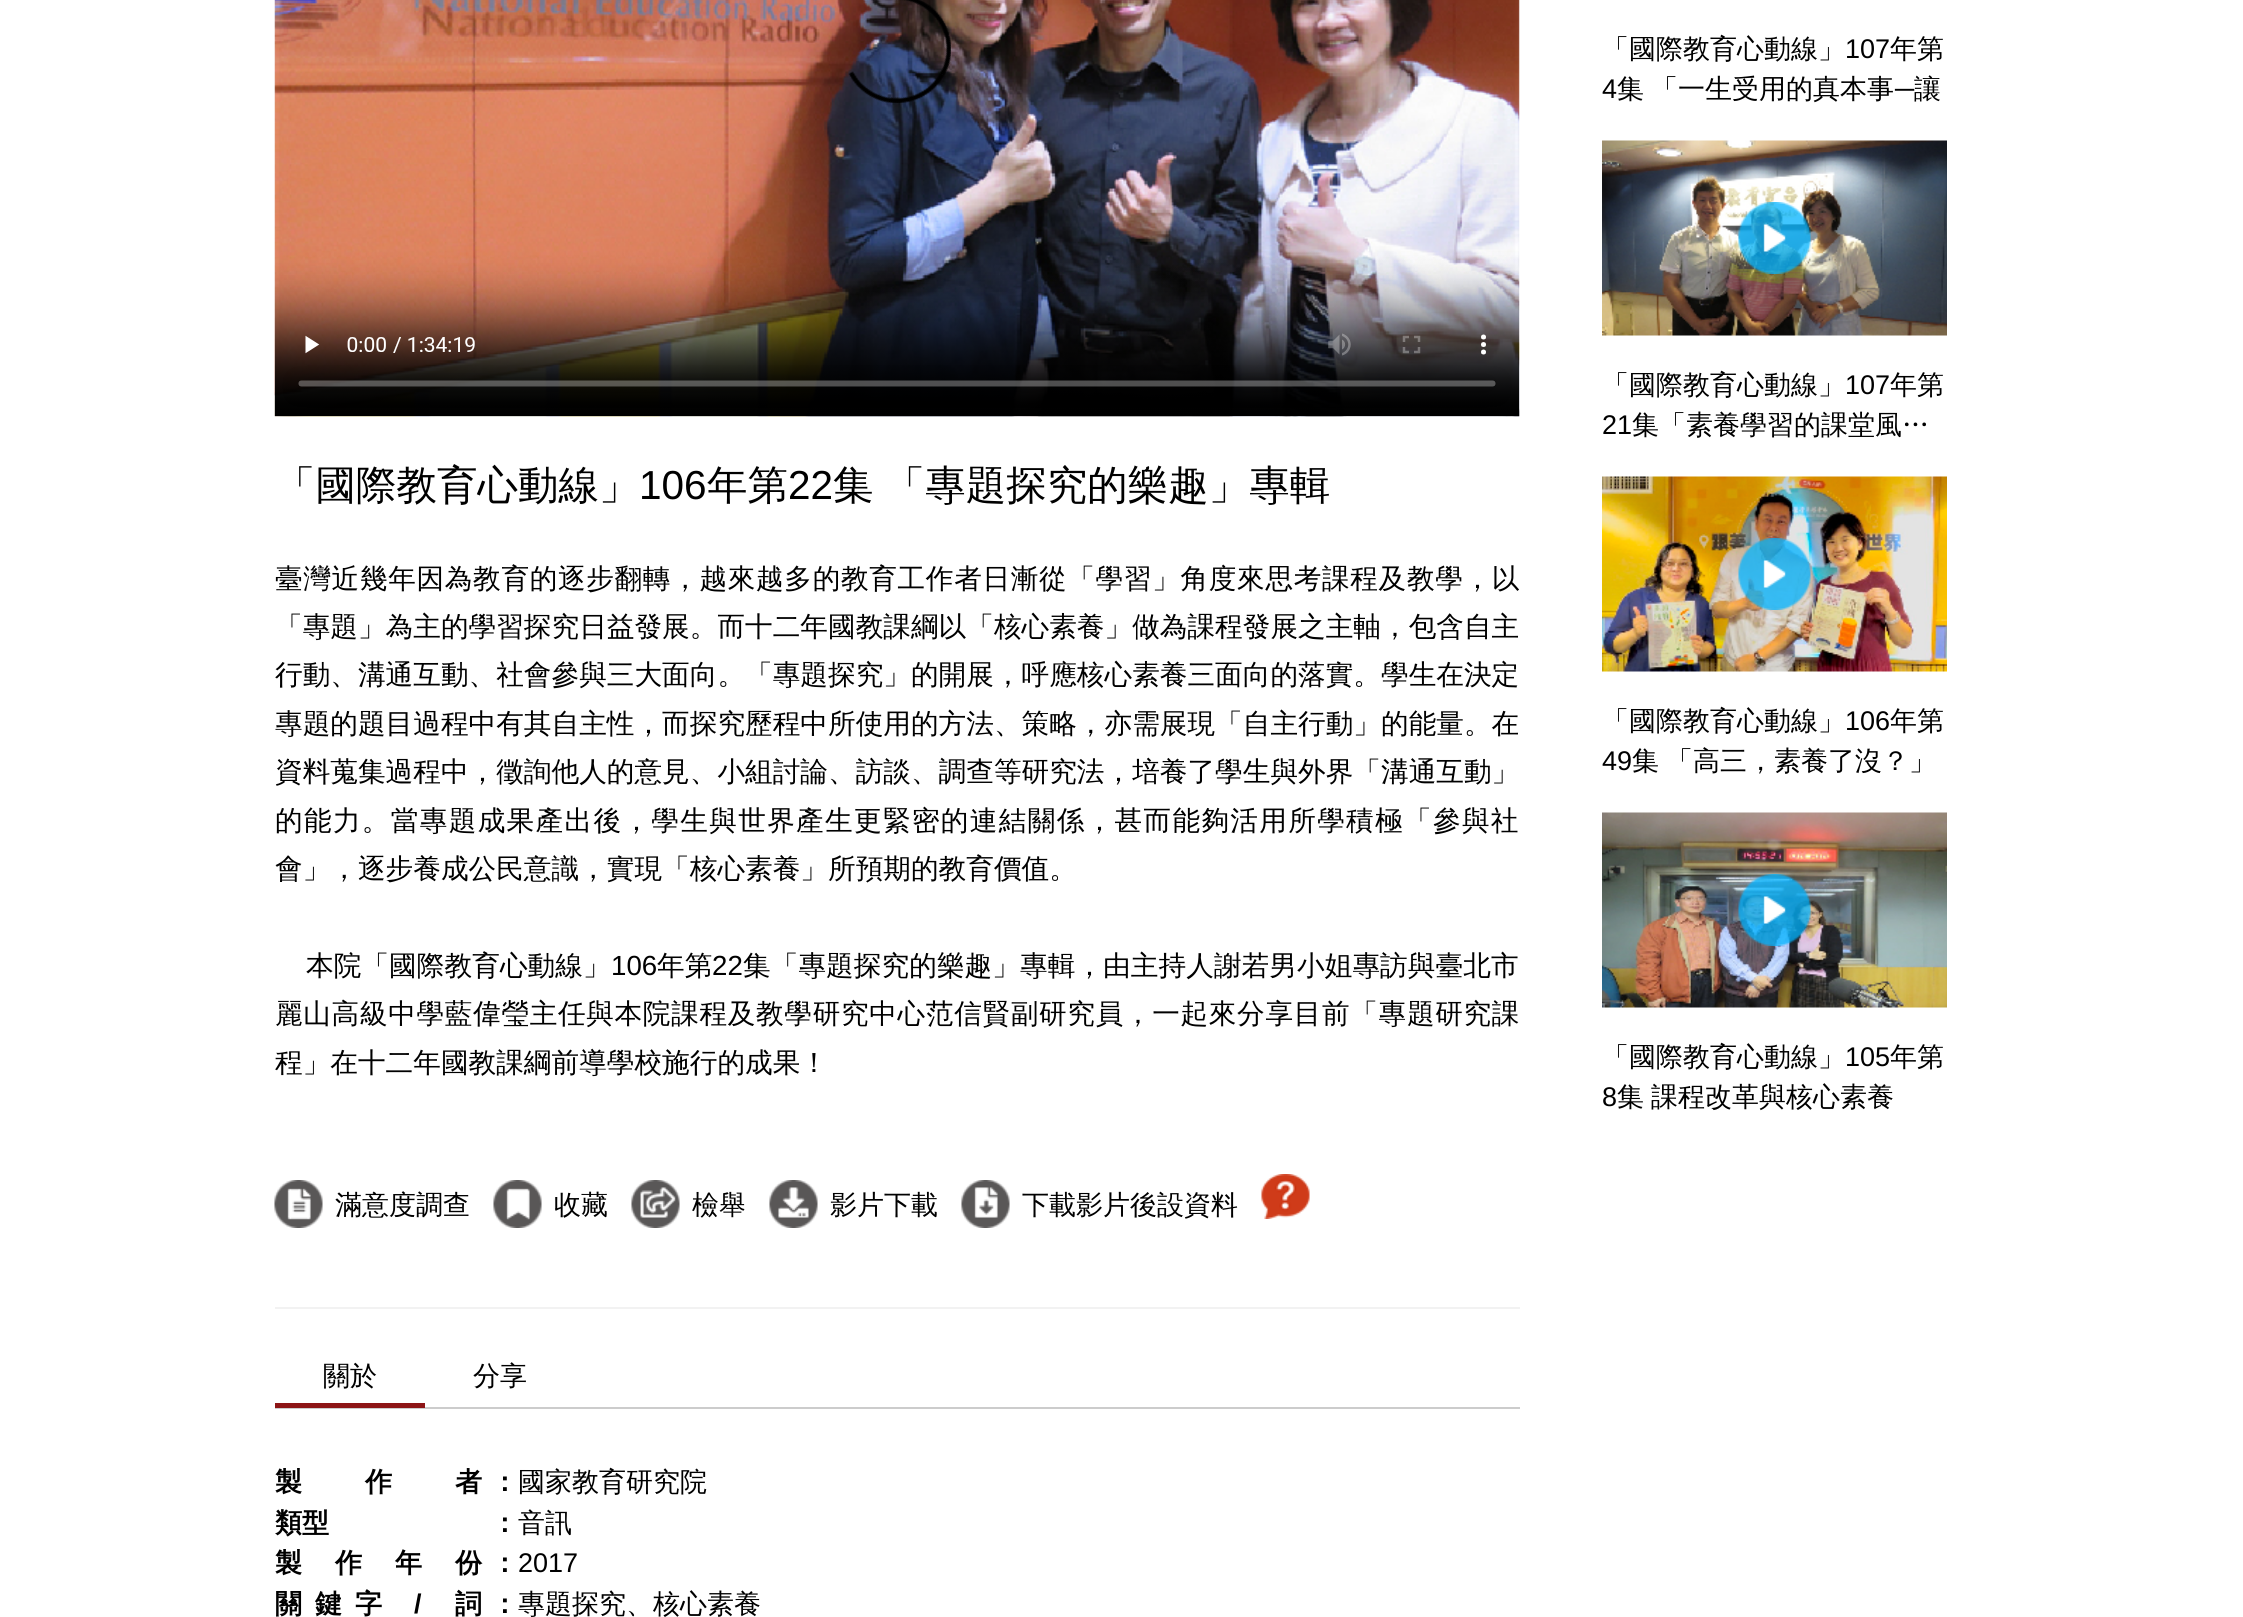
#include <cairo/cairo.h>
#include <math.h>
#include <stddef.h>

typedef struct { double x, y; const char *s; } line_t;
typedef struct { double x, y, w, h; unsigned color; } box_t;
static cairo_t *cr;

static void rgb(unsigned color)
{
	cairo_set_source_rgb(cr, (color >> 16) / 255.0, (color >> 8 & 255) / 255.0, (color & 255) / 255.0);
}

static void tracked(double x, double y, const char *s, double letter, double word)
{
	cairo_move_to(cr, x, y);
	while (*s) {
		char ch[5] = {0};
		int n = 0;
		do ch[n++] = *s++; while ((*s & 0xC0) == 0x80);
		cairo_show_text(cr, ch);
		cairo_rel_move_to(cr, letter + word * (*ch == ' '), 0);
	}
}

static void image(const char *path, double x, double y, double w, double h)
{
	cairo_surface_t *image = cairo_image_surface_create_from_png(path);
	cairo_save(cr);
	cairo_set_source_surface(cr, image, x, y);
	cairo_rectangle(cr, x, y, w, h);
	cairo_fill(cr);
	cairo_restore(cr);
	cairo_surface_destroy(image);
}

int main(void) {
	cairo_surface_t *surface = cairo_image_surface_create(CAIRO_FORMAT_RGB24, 2243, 1617);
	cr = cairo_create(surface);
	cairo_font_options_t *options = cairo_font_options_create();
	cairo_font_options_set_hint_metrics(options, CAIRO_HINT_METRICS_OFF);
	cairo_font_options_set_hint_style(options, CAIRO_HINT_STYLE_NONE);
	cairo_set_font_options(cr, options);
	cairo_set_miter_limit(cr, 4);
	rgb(0xffffff);
	cairo_paint(cr);
	image("img/1.png", 274, 0, 1246, 417);
	image("img/2.png", 274, 1180, 49, 48);
	image("img/3.png", 493, 1180, 49, 48);
	image("img/4.png", 631, 1180, 49, 48);
	image("img/5.png", 769, 1180, 49, 48);
	image("img/6.png", 961, 1180, 49, 48);
	image("img/7.png", 1261, 1174, 49, 45);
	{
		static const box_t items[] = {
			{275, 1307, 1245, 2, 0xf2f2f2},
			{275, 1407, 1245, 2, 0xcccccc},
			{275, 1403, 150, 5, 0x8d1516},
		};
		for (size_t i = 0; i < sizeof items / sizeof *items; i++) {
			rgb(items[i].color);
			cairo_rectangle(cr, items[i].x, items[i].y, items[i].w, items[i].h);
			cairo_fill(cr);
		}
	}
	image("img/8.png", 1602, 140, 345, 196);
	image("img/9.png", 1738, 202, 73, 72);
	image("img/10.png", 1602, 476, 345, 196);
	image("img/11.png", 1738, 538, 73, 72);
	image("img/12.png", 1602, 812, 345, 196);
	image("img/13.png", 1738, 874, 73, 72);
	cairo_select_font_face(cr, "WenQuanYi Zen Hei Medium", CAIRO_FONT_SLANT_NORMAL, CAIRO_FONT_WEIGHT_NORMAL);
	cairo_set_font_size(cr, 40.5);
	rgb(0x000000);
	cairo_move_to(cr, 275, 499);
	cairo_show_text(cr, "「國際教育心動線」");
	cairo_select_font_face(cr, "Liberation Sans", CAIRO_FONT_SLANT_NORMAL, CAIRO_FONT_WEIGHT_NORMAL);
	cairo_move_to(cr, 639, 499);
	cairo_show_text(cr, "106");
	cairo_select_font_face(cr, "WenQuanYi Zen Hei Medium", CAIRO_FONT_SLANT_NORMAL, CAIRO_FONT_WEIGHT_NORMAL);
	cairo_move_to(cr, 707, 499);
	cairo_show_text(cr, "年第");
	cairo_select_font_face(cr, "Liberation Sans", CAIRO_FONT_SLANT_NORMAL, CAIRO_FONT_WEIGHT_NORMAL);
	cairo_move_to(cr, 788, 499);
	cairo_show_text(cr, "22");
	cairo_select_font_face(cr, "WenQuanYi Zen Hei Medium", CAIRO_FONT_SLANT_NORMAL, CAIRO_FONT_WEIGHT_NORMAL);
	tracked(833, 499, "集 「專題探究的樂趣」專輯", 0, -1);
	cairo_set_font_size(cr, 27.65);
	tracked(275, 588, "臺灣近幾年因為教育的逐步翻轉，越來越多的教育工作者日漸從「學習」角度來思考課程及教學，以", 0.65, 0);
	{
		static const line_t items[] = {
			{275, 636, "「專題」為主的學習探究日益發展。而十二年國教課綱以「核心素養」做為課程發展之主軸，包含自主"},
			{275, 684, "行動、溝通互動、社會參與三大面向。「專題探究」的開展，呼應核心素養三面向的落實。學生在決定"},
			{275, 733, "專題的題目過程中有其自主性，而探究歷程中所使用的方法、策略，亦需展現「自主行動」的能量。在"},
			{275, 781, "資料蒐集過程中，徵詢他人的意見、小組討論、訪談、調查等研究法，培養了學生與外界「溝通互動」"},
		};
		for (size_t i = 0; i < sizeof items / sizeof *items; i++) {
			cairo_move_to(cr, items[i].x, items[i].y);
			cairo_show_text(cr, items[i].s);
		}
	}
	tracked(275, 830, "的能力。當專題成果產出後，學生與世界產生更緊密的連結關係，甚而能夠活用所學積極「參與社", 1.3, 0);
	cairo_move_to(cr, 275, 878);
	cairo_show_text(cr, "會」，逐步養成公民意識，實現「核心素養」所預期的教育價值。");
	tracked(306, 975, "本院「國際教育心動線」", 0.05, 0);
	cairo_select_font_face(cr, "Liberation Sans", CAIRO_FONT_SLANT_NORMAL, CAIRO_FONT_WEIGHT_NORMAL);
	tracked(611, 975, "106", 0.05, 0);
	cairo_select_font_face(cr, "WenQuanYi Zen Hei Medium", CAIRO_FONT_SLANT_NORMAL, CAIRO_FONT_WEIGHT_NORMAL);
	tracked(657, 975, "年第", 0.05, 0);
	cairo_select_font_face(cr, "Liberation Sans", CAIRO_FONT_SLANT_NORMAL, CAIRO_FONT_WEIGHT_NORMAL);
	tracked(712, 975, "22", 0.05, 0);
	cairo_select_font_face(cr, "WenQuanYi Zen Hei Medium", CAIRO_FONT_SLANT_NORMAL, CAIRO_FONT_WEIGHT_NORMAL);
	tracked(743, 975, "集「專題探究的樂趣」專輯，由主持人謝若男小姐專訪與臺北市", 0.05, 0);
	tracked(275, 1023, "麗山高級中學藍偉瑩主任與本院課程及教學研究中心范信賢副研究員，一起來分享目前「專題研究課", 0.65, 0);
	cairo_move_to(cr, 275, 1072);
	cairo_show_text(cr, "程」在十二年國教課綱前導學校施行的成果！");
	cairo_set_font_size(cr, 27);
	{
		static const line_t items[] = {
			{335, 1214, "滿意度調查"},
			{554, 1214, "收藏"},
			{692, 1214, "檢舉"},
			{830, 1214, "影片下載"},
			{1022, 1214, "下載影片後設資料"},
			{323, 1385, "關於"},
			{473, 1385, "分享"},
		};
		for (size_t i = 0; i < sizeof items / sizeof *items; i++) {
			cairo_move_to(cr, items[i].x, items[i].y);
			cairo_show_text(cr, items[i].s);
		}
	}
	cairo_select_font_face(cr, "WenQuanYi Zen Hei", CAIRO_FONT_SLANT_NORMAL, CAIRO_FONT_WEIGHT_BOLD);
	tracked(275, 1491, "製作者", 63, 0);
	cairo_move_to(cr, 491, 1491);
	cairo_show_text(cr, "：");
	cairo_select_font_face(cr, "WenQuanYi Zen Hei Medium", CAIRO_FONT_SLANT_NORMAL, CAIRO_FONT_WEIGHT_NORMAL);
	cairo_move_to(cr, 518, 1491);
	cairo_show_text(cr, "國家教育研究院");
	cairo_select_font_face(cr, "WenQuanYi Zen Hei", CAIRO_FONT_SLANT_NORMAL, CAIRO_FONT_WEIGHT_BOLD);
	cairo_move_to(cr, 275, 1532);
	cairo_show_text(cr, "類型");
	cairo_move_to(cr, 491, 1532);
	cairo_show_text(cr, "：");
	cairo_select_font_face(cr, "WenQuanYi Zen Hei Medium", CAIRO_FONT_SLANT_NORMAL, CAIRO_FONT_WEIGHT_NORMAL);
	cairo_move_to(cr, 518, 1532);
	cairo_show_text(cr, "音訊");
	cairo_select_font_face(cr, "WenQuanYi Zen Hei", CAIRO_FONT_SLANT_NORMAL, CAIRO_FONT_WEIGHT_BOLD);
	tracked(275, 1572, "製作年份", 33, 0);
	cairo_move_to(cr, 491, 1572);
	cairo_show_text(cr, "：");
	cairo_select_font_face(cr, "Liberation Sans", CAIRO_FONT_SLANT_NORMAL, CAIRO_FONT_WEIGHT_NORMAL);
	cairo_move_to(cr, 518, 1572);
	cairo_show_text(cr, "2017");
	cairo_select_font_face(cr, "WenQuanYi Zen Hei", CAIRO_FONT_SLANT_NORMAL, CAIRO_FONT_WEIGHT_BOLD);
	tracked(275, 1613, "關鍵字", 13, 0);
	cairo_select_font_face(cr, "Liberation Sans", CAIRO_FONT_SLANT_NORMAL, CAIRO_FONT_WEIGHT_BOLD);
	tracked(414, 1613, "/", 13, 0);
	cairo_select_font_face(cr, "WenQuanYi Zen Hei", CAIRO_FONT_SLANT_NORMAL, CAIRO_FONT_WEIGHT_BOLD);
	tracked(455, 1613, "詞", 13, 0);
	cairo_move_to(cr, 491, 1613);
	cairo_show_text(cr, "：");
	cairo_select_font_face(cr, "WenQuanYi Zen Hei Medium", CAIRO_FONT_SLANT_NORMAL, CAIRO_FONT_WEIGHT_NORMAL);
	cairo_move_to(cr, 518, 1613);
	cairo_show_text(cr, "專題探究、核心素養");
	cairo_move_to(cr, 1602, 58);
	cairo_show_text(cr, "「國際教育心動線」");
	cairo_select_font_face(cr, "Liberation Sans", CAIRO_FONT_SLANT_NORMAL, CAIRO_FONT_WEIGHT_NORMAL);
	cairo_move_to(cr, 1845, 58);
	cairo_show_text(cr, "107");
	cairo_select_font_face(cr, "WenQuanYi Zen Hei Medium", CAIRO_FONT_SLANT_NORMAL, CAIRO_FONT_WEIGHT_NORMAL);
	cairo_move_to(cr, 1890, 58);
	cairo_show_text(cr, "年第");
	cairo_select_font_face(cr, "Liberation Sans", CAIRO_FONT_SLANT_NORMAL, CAIRO_FONT_WEIGHT_NORMAL);
	cairo_move_to(cr, 1602, 98);
	cairo_show_text(cr, "4");
	cairo_select_font_face(cr, "WenQuanYi Zen Hei Medium", CAIRO_FONT_SLANT_NORMAL, CAIRO_FONT_WEIGHT_NORMAL);
	tracked(1617, 98, "集 「一生受用的真本事", 0, -1);
	cairo_select_font_face(cr, "Liberation Sans", CAIRO_FONT_SLANT_NORMAL, CAIRO_FONT_WEIGHT_NORMAL);
	cairo_move_to(cr, 1895, 98);
	cairo_show_text(cr, "─");
	cairo_select_font_face(cr, "WenQuanYi Zen Hei Medium", CAIRO_FONT_SLANT_NORMAL, CAIRO_FONT_WEIGHT_NORMAL);
	cairo_move_to(cr, 1914, 98);
	cairo_show_text(cr, "讓");
	cairo_move_to(cr, 1602, 394);
	cairo_show_text(cr, "「國際教育心動線」");
	cairo_select_font_face(cr, "Liberation Sans", CAIRO_FONT_SLANT_NORMAL, CAIRO_FONT_WEIGHT_NORMAL);
	cairo_move_to(cr, 1845, 394);
	cairo_show_text(cr, "107");
	cairo_select_font_face(cr, "WenQuanYi Zen Hei Medium", CAIRO_FONT_SLANT_NORMAL, CAIRO_FONT_WEIGHT_NORMAL);
	cairo_move_to(cr, 1890, 394);
	cairo_show_text(cr, "年第");
	cairo_select_font_face(cr, "Liberation Sans", CAIRO_FONT_SLANT_NORMAL, CAIRO_FONT_WEIGHT_NORMAL);
	cairo_move_to(cr, 1602, 434);
	cairo_show_text(cr, "21");
	cairo_select_font_face(cr, "WenQuanYi Zen Hei Medium", CAIRO_FONT_SLANT_NORMAL, CAIRO_FONT_WEIGHT_NORMAL);
	cairo_move_to(cr, 1632, 434);
	cairo_show_text(cr, "集「素養學習的課堂風…");
	cairo_move_to(cr, 1602, 730);
	cairo_show_text(cr, "「國際教育心動線」");
	cairo_select_font_face(cr, "Liberation Sans", CAIRO_FONT_SLANT_NORMAL, CAIRO_FONT_WEIGHT_NORMAL);
	cairo_move_to(cr, 1845, 730);
	cairo_show_text(cr, "106");
	cairo_select_font_face(cr, "WenQuanYi Zen Hei Medium", CAIRO_FONT_SLANT_NORMAL, CAIRO_FONT_WEIGHT_NORMAL);
	cairo_move_to(cr, 1890, 730);
	cairo_show_text(cr, "年第");
	cairo_select_font_face(cr, "Liberation Sans", CAIRO_FONT_SLANT_NORMAL, CAIRO_FONT_WEIGHT_NORMAL);
	cairo_move_to(cr, 1602, 770);
	cairo_show_text(cr, "49");
	cairo_select_font_face(cr, "WenQuanYi Zen Hei Medium", CAIRO_FONT_SLANT_NORMAL, CAIRO_FONT_WEIGHT_NORMAL);
	tracked(1632, 770, "集 「高三，素養了沒？」", 0, -1);
	cairo_move_to(cr, 1602, 1066);
	cairo_show_text(cr, "「國際教育心動線」");
	cairo_select_font_face(cr, "Liberation Sans", CAIRO_FONT_SLANT_NORMAL, CAIRO_FONT_WEIGHT_NORMAL);
	cairo_move_to(cr, 1845, 1066);
	cairo_show_text(cr, "105");
	cairo_select_font_face(cr, "WenQuanYi Zen Hei Medium", CAIRO_FONT_SLANT_NORMAL, CAIRO_FONT_WEIGHT_NORMAL);
	cairo_move_to(cr, 1890, 1066);
	cairo_show_text(cr, "年第");
	cairo_select_font_face(cr, "Liberation Sans", CAIRO_FONT_SLANT_NORMAL, CAIRO_FONT_WEIGHT_NORMAL);
	cairo_move_to(cr, 1602, 1106);
	cairo_show_text(cr, "8");
	cairo_select_font_face(cr, "WenQuanYi Zen Hei Medium", CAIRO_FONT_SLANT_NORMAL, CAIRO_FONT_WEIGHT_NORMAL);
	tracked(1617, 1106, "集 課程改革與核心素養", 0, -1);
	cairo_surface_write_to_png(surface, "page.png");
	cairo_font_options_destroy(options);
	cairo_destroy(cr);
	cairo_surface_destroy(surface);
	return 0;
}
